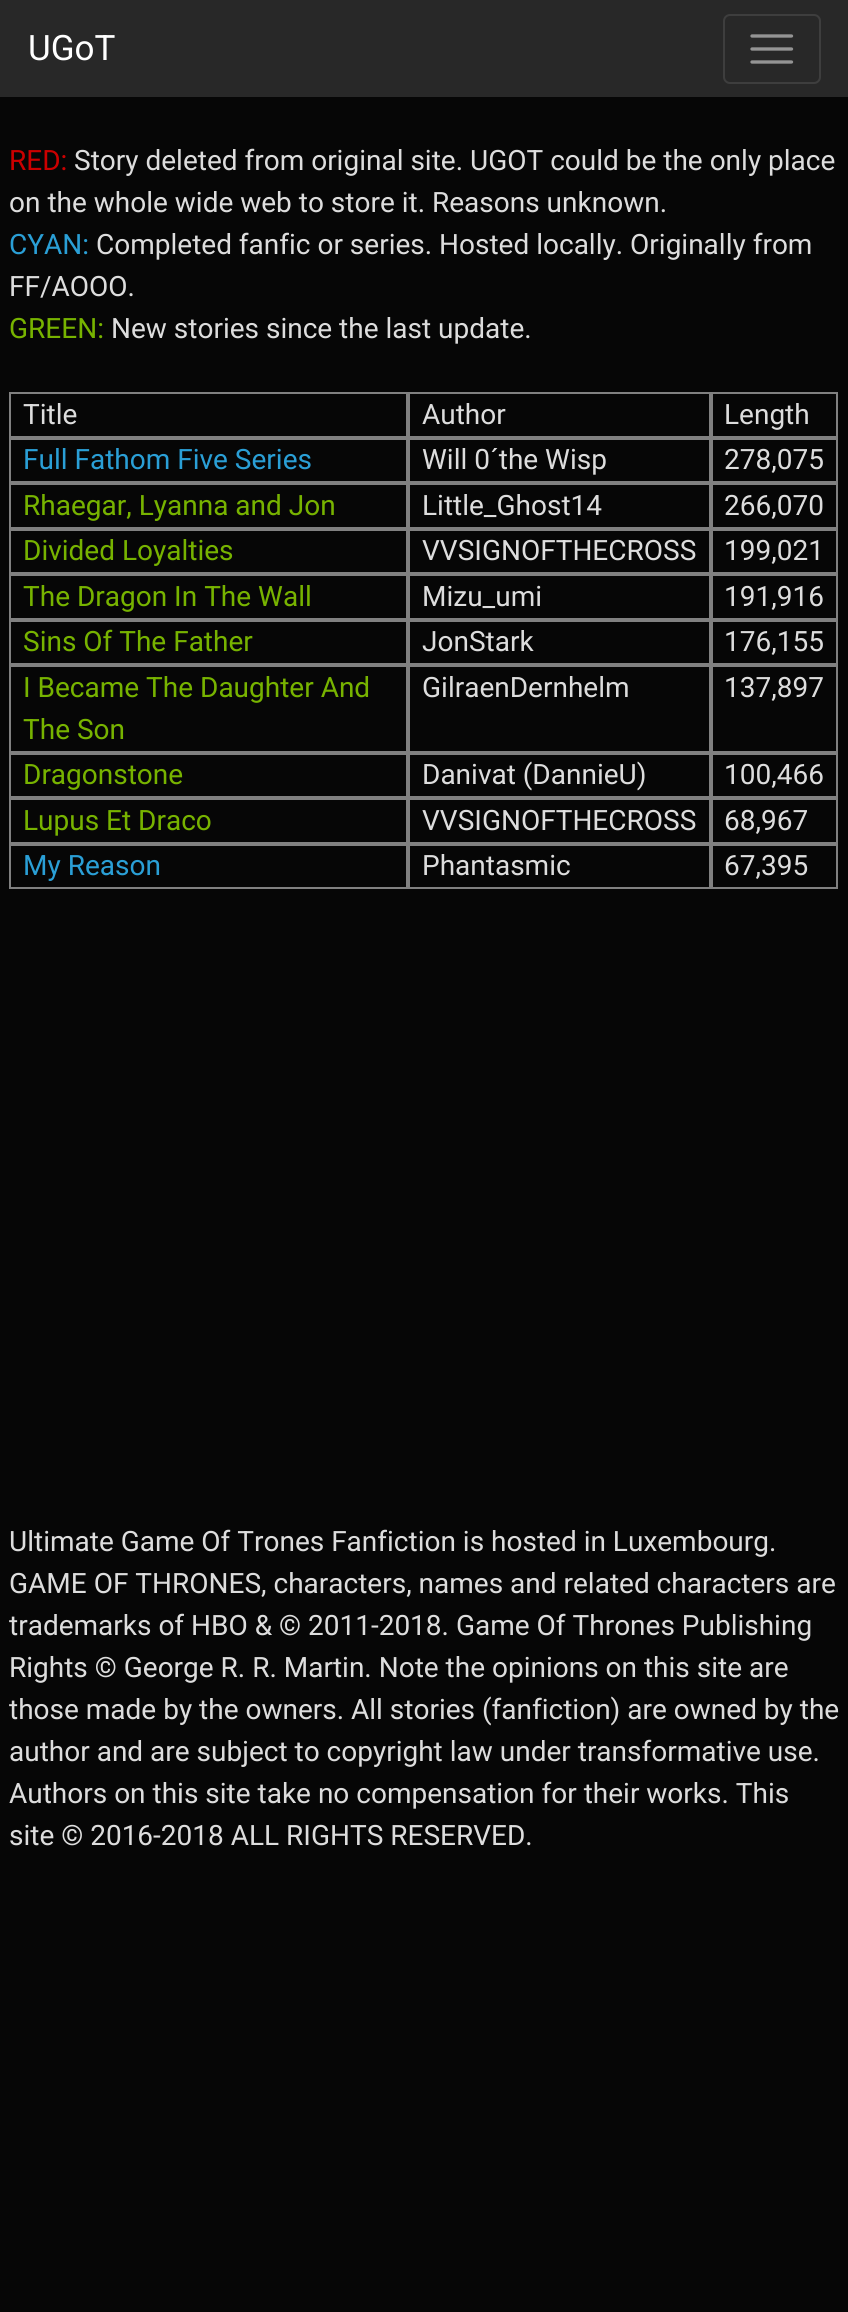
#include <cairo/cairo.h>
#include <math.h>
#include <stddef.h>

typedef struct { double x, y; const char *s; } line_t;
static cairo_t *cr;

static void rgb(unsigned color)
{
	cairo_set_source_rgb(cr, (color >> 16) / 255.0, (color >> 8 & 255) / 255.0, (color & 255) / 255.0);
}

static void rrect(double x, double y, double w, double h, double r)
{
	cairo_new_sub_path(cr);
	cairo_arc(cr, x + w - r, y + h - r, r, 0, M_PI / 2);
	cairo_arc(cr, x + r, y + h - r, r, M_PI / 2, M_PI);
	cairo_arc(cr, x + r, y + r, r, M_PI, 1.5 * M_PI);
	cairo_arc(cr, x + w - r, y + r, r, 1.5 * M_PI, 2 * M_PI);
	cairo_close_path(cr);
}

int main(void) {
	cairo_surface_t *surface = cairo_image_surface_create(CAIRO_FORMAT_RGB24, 848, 2312);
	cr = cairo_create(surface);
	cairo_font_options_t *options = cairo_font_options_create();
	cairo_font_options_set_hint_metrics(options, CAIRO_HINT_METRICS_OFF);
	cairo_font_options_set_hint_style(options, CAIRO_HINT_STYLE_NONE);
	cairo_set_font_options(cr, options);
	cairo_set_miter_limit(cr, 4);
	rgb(0x060606);
	cairo_paint(cr);
	rgb(0x282828);
	cairo_rectangle(cr, 0, 0, 848, 97);
	cairo_fill(cr);
	rrect(724, 15, 96, 68, 6);
	rgb(0x3e3e3e);
	cairo_stroke(cr);
	cairo_new_path(cr);
	cairo_move_to(cr, 752, 36);
	cairo_line_to(cr, 791.5, 36);
	cairo_move_to(cr, 752, 49);
	cairo_line_to(cr, 791.5, 49);
	cairo_move_to(cr, 752, 62);
	cairo_line_to(cr, 791.5, 62);
	rgb(0x949494);
	cairo_set_line_width(cr, 3.3);
	cairo_set_line_cap(cr, CAIRO_LINE_CAP_ROUND);
	cairo_stroke(cr);
	cairo_rectangle(cr, 10, 393, 397, 44);
	rgb(0x808080);
	cairo_set_line_width(cr, 2);
	cairo_set_line_cap(cr, CAIRO_LINE_CAP_BUTT);
	cairo_stroke(cr);
	cairo_rectangle(cr, 409, 393, 301, 44);
	cairo_stroke(cr);
	cairo_rectangle(cr, 712, 393, 125, 44);
	cairo_stroke(cr);
	cairo_rectangle(cr, 10, 439, 397, 43);
	cairo_stroke(cr);
	cairo_rectangle(cr, 409, 439, 301, 43);
	cairo_stroke(cr);
	cairo_rectangle(cr, 712, 439, 125, 43);
	cairo_stroke(cr);
	cairo_rectangle(cr, 10, 484, 397, 44);
	cairo_stroke(cr);
	cairo_rectangle(cr, 409, 484, 301, 44);
	cairo_stroke(cr);
	cairo_rectangle(cr, 712, 484, 125, 44);
	cairo_stroke(cr);
	cairo_rectangle(cr, 10, 530, 397, 43);
	cairo_stroke(cr);
	cairo_rectangle(cr, 409, 530, 301, 43);
	cairo_stroke(cr);
	cairo_rectangle(cr, 712, 530, 125, 43);
	cairo_stroke(cr);
	cairo_rectangle(cr, 10, 575, 397, 44);
	cairo_stroke(cr);
	cairo_rectangle(cr, 409, 575, 301, 44);
	cairo_stroke(cr);
	cairo_rectangle(cr, 712, 575, 125, 44);
	cairo_stroke(cr);
	cairo_rectangle(cr, 10, 621, 397, 43);
	cairo_stroke(cr);
	cairo_rectangle(cr, 409, 621, 301, 43);
	cairo_stroke(cr);
	cairo_rectangle(cr, 712, 621, 125, 43);
	cairo_stroke(cr);
	cairo_rectangle(cr, 10, 666, 397, 86);
	cairo_stroke(cr);
	cairo_rectangle(cr, 409, 666, 301, 86);
	cairo_stroke(cr);
	cairo_rectangle(cr, 712, 666, 125, 86);
	cairo_stroke(cr);
	cairo_rectangle(cr, 10, 754, 397, 43);
	cairo_stroke(cr);
	cairo_rectangle(cr, 409, 754, 301, 43);
	cairo_stroke(cr);
	cairo_rectangle(cr, 712, 754, 125, 43);
	cairo_stroke(cr);
	cairo_rectangle(cr, 10, 799, 397, 44);
	cairo_stroke(cr);
	cairo_rectangle(cr, 409, 799, 301, 44);
	cairo_stroke(cr);
	cairo_rectangle(cr, 712, 799, 125, 44);
	cairo_stroke(cr);
	cairo_rectangle(cr, 10, 845, 397, 43);
	cairo_stroke(cr);
	cairo_rectangle(cr, 409, 845, 301, 43);
	cairo_stroke(cr);
	cairo_rectangle(cr, 712, 845, 125, 43);
	cairo_stroke(cr);
	cairo_select_font_face(cr, "Roboto", CAIRO_FONT_SLANT_NORMAL, CAIRO_FONT_WEIGHT_NORMAL);
	cairo_set_font_size(cr, 35);
	rgb(0xffffff);
	cairo_move_to(cr, 28, 60);
	cairo_show_text(cr, "UGoT");
	cairo_set_font_size(cr, 28);
	rgb(0xcc0000);
	cairo_move_to(cr, 9, 170);
	cairo_show_text(cr, "RED:");
	rgb(0xdddddd);
	cairo_move_to(cr, 74, 170);
	cairo_show_text(cr, "Story deleted from original site. UGOT could be the only place");
	cairo_move_to(cr, 9, 212);
	cairo_show_text(cr, "on the whole wide web to store it. Reasons unknown.");
	rgb(0x2a9fd6);
	cairo_move_to(cr, 9, 254);
	cairo_show_text(cr, "CYAN:");
	rgb(0xdddddd);
	cairo_move_to(cr, 96, 254);
	cairo_show_text(cr, "Completed fanfic or series. Hosted locally. Originally from");
	cairo_move_to(cr, 9, 296);
	cairo_show_text(cr, "FF/AOOO.");
	rgb(0x77b300);
	cairo_move_to(cr, 9, 338);
	cairo_show_text(cr, "GREEN:");
	rgb(0xdddddd);
	{
		static const line_t items[] = {
			{111, 338, "New stories since the last update."},
			{23, 424, "Title"},
			{422, 424, "Author"},
			{724, 424, "Length"},
		};
		for (size_t i = 0; i < sizeof items / sizeof *items; i++) {
			cairo_move_to(cr, items[i].x, items[i].y);
			cairo_show_text(cr, items[i].s);
		}
	}
	rgb(0x2a9fd6);
	cairo_move_to(cr, 23, 469);
	cairo_show_text(cr, "Full Fathom Five Series");
	rgb(0xdddddd);
	cairo_move_to(cr, 422, 469);
	cairo_show_text(cr, "Will 0´the Wisp");
	cairo_move_to(cr, 724, 469);
	cairo_show_text(cr, "278,075");
	rgb(0x77b300);
	cairo_move_to(cr, 23, 515);
	cairo_show_text(cr, "Rhaegar, Lyanna and Jon");
	rgb(0xdddddd);
	cairo_move_to(cr, 422, 515);
	cairo_show_text(cr, "Little_Ghost14");
	cairo_move_to(cr, 724, 515);
	cairo_show_text(cr, "266,070");
	rgb(0x77b300);
	cairo_move_to(cr, 23, 560);
	cairo_show_text(cr, "Divided Loyalties");
	rgb(0xdddddd);
	cairo_move_to(cr, 422, 560);
	cairo_show_text(cr, "VVSIGNOFTHECROSS");
	cairo_move_to(cr, 724, 560);
	cairo_show_text(cr, "199,021");
	rgb(0x77b300);
	cairo_move_to(cr, 23, 606);
	cairo_show_text(cr, "The Dragon In The Wall");
	rgb(0xdddddd);
	cairo_move_to(cr, 422, 606);
	cairo_show_text(cr, "Mizu_umi");
	cairo_move_to(cr, 724, 606);
	cairo_show_text(cr, "191,916");
	rgb(0x77b300);
	cairo_move_to(cr, 23, 651);
	cairo_show_text(cr, "Sins Of The Father");
	rgb(0xdddddd);
	cairo_move_to(cr, 422, 651);
	cairo_show_text(cr, "JonStark");
	cairo_move_to(cr, 724, 651);
	cairo_show_text(cr, "176,155");
	rgb(0x77b300);
	cairo_move_to(cr, 23, 697);
	cairo_show_text(cr, "I Became The Daughter And");
	cairo_move_to(cr, 23, 739);
	cairo_show_text(cr, "The Son");
	rgb(0xdddddd);
	cairo_move_to(cr, 422, 697);
	cairo_show_text(cr, "GilraenDernhelm");
	cairo_move_to(cr, 724, 697);
	cairo_show_text(cr, "137,897");
	rgb(0x77b300);
	cairo_move_to(cr, 23, 784);
	cairo_show_text(cr, "Dragonstone");
	rgb(0xdddddd);
	cairo_move_to(cr, 422, 784);
	cairo_show_text(cr, "Danivat (DannieU)");
	cairo_move_to(cr, 724, 784);
	cairo_show_text(cr, "100,466");
	rgb(0x77b300);
	cairo_move_to(cr, 23, 830);
	cairo_show_text(cr, "Lupus Et Draco");
	rgb(0xdddddd);
	cairo_move_to(cr, 422, 830);
	cairo_show_text(cr, "VVSIGNOFTHECROSS");
	cairo_move_to(cr, 724, 830);
	cairo_show_text(cr, "68,967");
	rgb(0x2a9fd6);
	cairo_move_to(cr, 23, 875);
	cairo_show_text(cr, "My Reason");
	rgb(0xdddddd);
	{
		static const line_t items[] = {
			{422, 875, "Phantasmic"},
			{724, 875, "67,395"},
			{9, 1551, "Ultimate Game Of Trones Fanfiction is hosted in Luxembourg."},
			{9, 1593, "GAME OF THRONES, characters, names and related characters are"},
			{9, 1635, "trademarks of HBO & © 2011-2018. Game Of Thrones Publishing"},
			{9, 1677, "Rights © George R. R. Martin. Note the opinions on this site are"},
			{9, 1719, "those made by the owners. All stories (fanfiction) are owned by the"},
			{9, 1761, "author and are subject to copyright law under transformative use."},
			{9, 1803, "Authors on this site take no compensation for their works. This"},
			{9, 1845, "site © 2016-2018 ALL RIGHTS RESERVED."},
		};
		for (size_t i = 0; i < sizeof items / sizeof *items; i++) {
			cairo_move_to(cr, items[i].x, items[i].y);
			cairo_show_text(cr, items[i].s);
		}
	}
	cairo_surface_write_to_png(surface, "page.png");
	cairo_font_options_destroy(options);
	cairo_destroy(cr);
	cairo_surface_destroy(surface);
	return 0;
}
